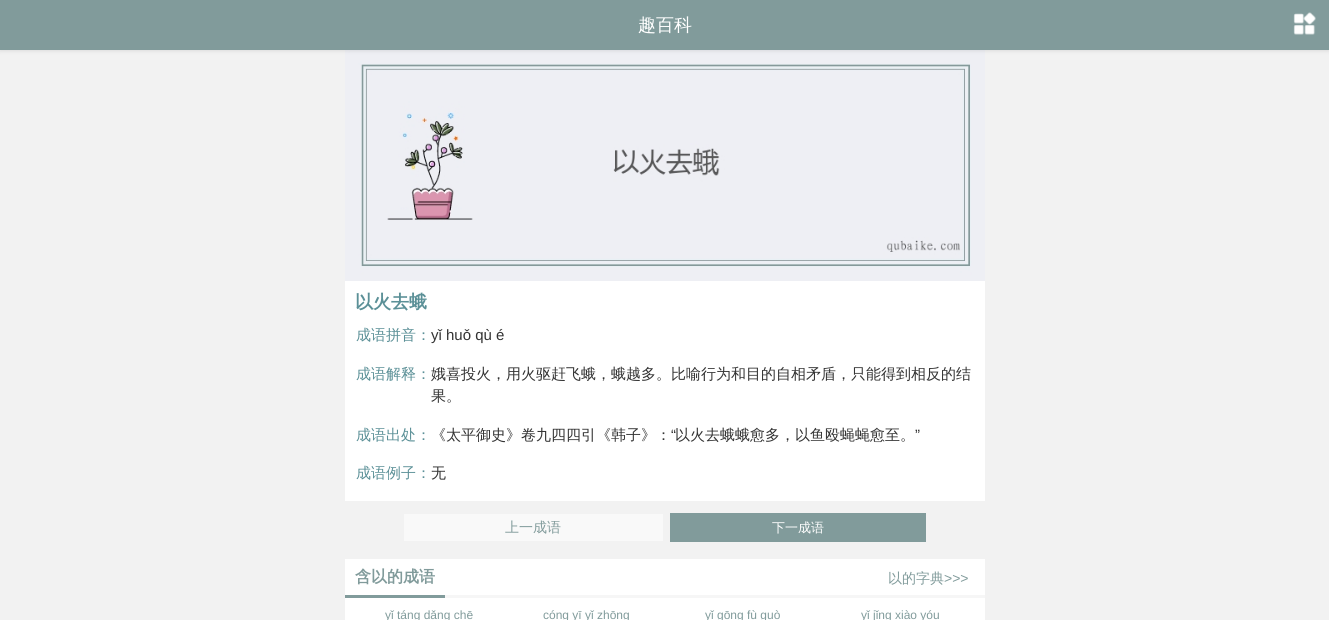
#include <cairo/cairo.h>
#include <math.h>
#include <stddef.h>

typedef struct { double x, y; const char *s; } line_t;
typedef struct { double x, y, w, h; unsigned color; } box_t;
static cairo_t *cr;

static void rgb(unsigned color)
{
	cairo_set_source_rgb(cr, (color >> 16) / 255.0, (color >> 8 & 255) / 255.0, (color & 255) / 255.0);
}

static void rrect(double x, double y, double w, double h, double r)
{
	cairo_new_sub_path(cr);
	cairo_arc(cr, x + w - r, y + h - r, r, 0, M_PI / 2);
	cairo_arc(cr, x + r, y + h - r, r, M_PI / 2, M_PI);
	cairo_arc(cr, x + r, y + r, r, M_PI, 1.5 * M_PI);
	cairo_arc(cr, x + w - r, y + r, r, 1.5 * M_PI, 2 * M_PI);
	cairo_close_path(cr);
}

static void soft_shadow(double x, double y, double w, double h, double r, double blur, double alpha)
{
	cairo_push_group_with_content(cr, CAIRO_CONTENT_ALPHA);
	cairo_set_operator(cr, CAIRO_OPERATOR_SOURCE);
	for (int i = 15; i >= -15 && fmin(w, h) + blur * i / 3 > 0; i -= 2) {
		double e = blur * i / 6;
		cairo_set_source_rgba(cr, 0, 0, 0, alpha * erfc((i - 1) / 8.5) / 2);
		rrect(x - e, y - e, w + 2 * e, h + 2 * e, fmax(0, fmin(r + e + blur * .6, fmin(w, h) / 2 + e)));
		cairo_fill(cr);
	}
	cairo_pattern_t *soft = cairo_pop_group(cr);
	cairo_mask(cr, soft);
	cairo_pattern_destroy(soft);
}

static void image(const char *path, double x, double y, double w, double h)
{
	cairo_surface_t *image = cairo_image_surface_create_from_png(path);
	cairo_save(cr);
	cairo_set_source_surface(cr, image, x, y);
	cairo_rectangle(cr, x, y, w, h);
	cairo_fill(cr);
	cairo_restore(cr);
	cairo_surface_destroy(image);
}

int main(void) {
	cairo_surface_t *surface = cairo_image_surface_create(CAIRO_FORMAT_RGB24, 1329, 620);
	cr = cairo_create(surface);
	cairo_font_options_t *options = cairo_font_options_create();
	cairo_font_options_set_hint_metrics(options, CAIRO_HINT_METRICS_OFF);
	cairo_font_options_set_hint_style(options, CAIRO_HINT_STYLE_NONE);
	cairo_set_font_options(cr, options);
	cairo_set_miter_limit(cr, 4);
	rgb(0xf2f2f2);
	cairo_paint(cr);
	image("img/2.png", 345, 50, 640, 231);
	rgb(0x000000);
	soft_shadow(0, 1, 1329, 50, 0, 2, 0.1);
	rgb(0x819b9b);
	cairo_rectangle(cr, 0, 0, 1329, 50);
	cairo_fill(cr);
	image("img/1.png", 1293, 12, 23, 23);
	{
		static const box_t items[] = {
			{345, 281, 640, 220, 0xffffff},
			{404, 514, 259, 27, 0xf9f9f9},
			{670, 513, 256, 29, 0x819b9b},
			{345, 559, 640, 61, 0xffffff},
			{445, 595, 540, 3, 0xf6f6f6},
			{345, 595, 100, 3, 0x819b9b},
		};
		for (size_t i = 0; i < sizeof items / sizeof *items; i++) {
			rgb(items[i].color);
			cairo_rectangle(cr, items[i].x, items[i].y, items[i].w, items[i].h);
			cairo_fill(cr);
		}
	}
	cairo_select_font_face(cr, "WenQuanYi Zen Hei Medium", CAIRO_FONT_SLANT_NORMAL, CAIRO_FONT_WEIGHT_NORMAL);
	cairo_set_font_size(cr, 18);
	rgb(0xffffff);
	cairo_move_to(cr, 638, 31);
	cairo_show_text(cr, "趣百科");
	cairo_select_font_face(cr, "WenQuanYi Zen Hei", CAIRO_FONT_SLANT_NORMAL, CAIRO_FONT_WEIGHT_BOLD);
	rgb(0x5b9097);
	cairo_move_to(cr, 355, 308);
	cairo_show_text(cr, "以火去蛾");
	cairo_select_font_face(cr, "WenQuanYi Zen Hei Medium", CAIRO_FONT_SLANT_NORMAL, CAIRO_FONT_WEIGHT_NORMAL);
	cairo_set_font_size(cr, 15);
	cairo_move_to(cr, 356, 340);
	cairo_show_text(cr, "成语拼音：");
	cairo_select_font_face(cr, "Liberation Sans", CAIRO_FONT_SLANT_NORMAL, CAIRO_FONT_WEIGHT_NORMAL);
	rgb(0x333333);
	cairo_move_to(cr, 431, 340);
	cairo_show_text(cr, "yǐ huǒ qù é");
	cairo_select_font_face(cr, "WenQuanYi Zen Hei Medium", CAIRO_FONT_SLANT_NORMAL, CAIRO_FONT_WEIGHT_NORMAL);
	rgb(0x5b9097);
	cairo_move_to(cr, 356, 379);
	cairo_show_text(cr, "成语解释：");
	rgb(0x333333);
	cairo_move_to(cr, 431, 379);
	cairo_show_text(cr, "娥喜投火，用火驱赶飞蛾，蛾越多。比喻行为和目的自相矛盾，只能得到相反的结");
	cairo_move_to(cr, 431, 401);
	cairo_show_text(cr, "果。");
	rgb(0x5b9097);
	cairo_move_to(cr, 356, 440);
	cairo_show_text(cr, "成语出处：");
	rgb(0x333333);
	cairo_move_to(cr, 431, 440);
	cairo_show_text(cr, "《太平御史》卷九四四引《韩子》：");
	cairo_select_font_face(cr, "Liberation Sans", CAIRO_FONT_SLANT_NORMAL, CAIRO_FONT_WEIGHT_NORMAL);
	cairo_move_to(cr, 671, 440);
	cairo_show_text(cr, "“");
	cairo_select_font_face(cr, "WenQuanYi Zen Hei Medium", CAIRO_FONT_SLANT_NORMAL, CAIRO_FONT_WEIGHT_NORMAL);
	cairo_move_to(cr, 675, 440);
	cairo_show_text(cr, "以火去蛾蛾愈多，以鱼殴蝇蝇愈至。");
	cairo_select_font_face(cr, "Liberation Sans", CAIRO_FONT_SLANT_NORMAL, CAIRO_FONT_WEIGHT_NORMAL);
	cairo_move_to(cr, 915, 440);
	cairo_show_text(cr, "”");
	cairo_select_font_face(cr, "WenQuanYi Zen Hei Medium", CAIRO_FONT_SLANT_NORMAL, CAIRO_FONT_WEIGHT_NORMAL);
	rgb(0x5b9097);
	cairo_move_to(cr, 356, 478);
	cairo_show_text(cr, "成语例子：");
	rgb(0x333333);
	cairo_move_to(cr, 431, 478);
	cairo_show_text(cr, "无");
	cairo_set_font_size(cr, 14);
	rgb(0x819b9b);
	cairo_move_to(cr, 505, 532);
	cairo_show_text(cr, "上一成语");
	cairo_set_font_size(cr, 13);
	rgb(0xffffff);
	cairo_move_to(cr, 772, 532);
	cairo_show_text(cr, "下一成语");
	cairo_select_font_face(cr, "WenQuanYi Zen Hei", CAIRO_FONT_SLANT_NORMAL, CAIRO_FONT_WEIGHT_BOLD);
	cairo_set_font_size(cr, 16);
	rgb(0x819b9b);
	cairo_move_to(cr, 355, 582);
	cairo_show_text(cr, "含以的成语");
	cairo_select_font_face(cr, "WenQuanYi Zen Hei Medium", CAIRO_FONT_SLANT_NORMAL, CAIRO_FONT_WEIGHT_NORMAL);
	cairo_set_font_size(cr, 14);
	cairo_move_to(cr, 888, 583);
	cairo_show_text(cr, "以的字典");
	cairo_select_font_face(cr, "Liberation Sans", CAIRO_FONT_SLANT_NORMAL, CAIRO_FONT_WEIGHT_NORMAL);
	cairo_move_to(cr, 944, 583);
	cairo_show_text(cr, ">>>");
	cairo_set_font_size(cr, 12);
	{
		static const line_t items[] = {
			{385, 619, "yǐ táng dǎng chē"},
			{543, 619, "cóng yī yǐ zhōng"},
			{705, 619, "yǐ gōng fù guò"},
			{861, 619, "yǐ jǐng xiào yóu"},
		};
		for (size_t i = 0; i < sizeof items / sizeof *items; i++) {
			cairo_move_to(cr, items[i].x, items[i].y);
			cairo_show_text(cr, items[i].s);
		}
	}
	cairo_surface_write_to_png(surface, "page.png");
	cairo_font_options_destroy(options);
	cairo_destroy(cr);
	cairo_surface_destroy(surface);
	return 0;
}
